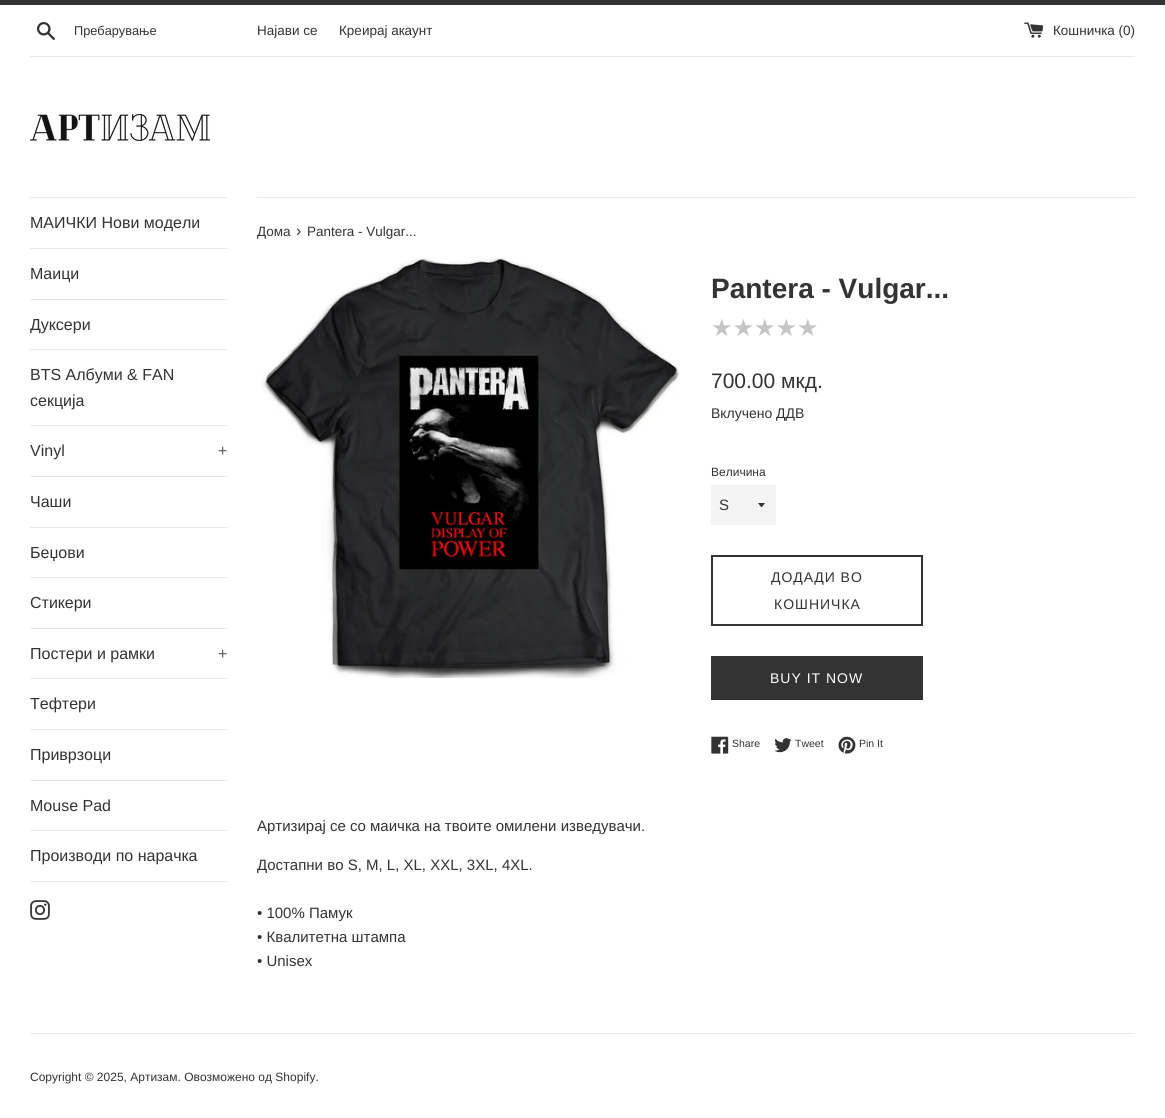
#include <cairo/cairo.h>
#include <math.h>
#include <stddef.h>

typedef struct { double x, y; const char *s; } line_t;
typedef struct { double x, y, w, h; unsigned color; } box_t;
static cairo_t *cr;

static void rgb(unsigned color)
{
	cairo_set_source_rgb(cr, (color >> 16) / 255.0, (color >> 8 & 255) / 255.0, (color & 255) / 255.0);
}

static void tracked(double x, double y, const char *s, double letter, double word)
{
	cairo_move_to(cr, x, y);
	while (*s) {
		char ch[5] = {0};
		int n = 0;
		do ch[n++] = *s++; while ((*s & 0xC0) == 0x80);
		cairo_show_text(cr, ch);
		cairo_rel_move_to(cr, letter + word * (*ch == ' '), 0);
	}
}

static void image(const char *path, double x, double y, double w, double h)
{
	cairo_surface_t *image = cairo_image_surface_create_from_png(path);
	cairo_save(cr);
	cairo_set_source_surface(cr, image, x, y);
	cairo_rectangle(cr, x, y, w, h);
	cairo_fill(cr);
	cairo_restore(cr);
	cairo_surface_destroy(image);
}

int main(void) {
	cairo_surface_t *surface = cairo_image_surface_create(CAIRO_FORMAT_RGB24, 1165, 1118);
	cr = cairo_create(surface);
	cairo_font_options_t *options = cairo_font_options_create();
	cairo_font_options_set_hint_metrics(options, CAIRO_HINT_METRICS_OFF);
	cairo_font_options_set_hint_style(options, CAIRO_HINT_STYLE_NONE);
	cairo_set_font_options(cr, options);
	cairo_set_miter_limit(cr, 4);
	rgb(0xffffff);
	cairo_paint(cr);
	rgb(0x333333);
	cairo_rectangle(cr, 0, 0, 1165, 5);
	cairo_fill(cr);
	image("img/1.png", 37, 22, 18, 18);
	image("img/2.png", 1024, 22, 20, 16);
	rgb(0xe8e8e8);
	cairo_rectangle(cr, 30, 56, 1105, 1);
	cairo_fill(cr);
	image("img/3.png", 30, 114, 180, 27);
	{
		static const box_t items[] = {
			{30, 197, 197, 1, 0xe8e8e8},
			{30, 248, 197, 1, 0xe8e8e8},
			{30, 299, 197, 1, 0xe8e8e8},
			{30, 349, 197, 1, 0xe8e8e8},
			{30, 425, 197, 1, 0xe8e8e8},
			{30, 476, 197, 1, 0xe8e8e8},
			{30, 527, 197, 1, 0xe8e8e8},
			{30, 577, 197, 1, 0xe8e8e8},
			{30, 628, 197, 1, 0xe8e8e8},
			{30, 678, 197, 1, 0xe8e8e8},
			{30, 729, 197, 1, 0xe8e8e8},
			{30, 780, 197, 1, 0xe8e8e8},
			{30, 830, 197, 1, 0xe8e8e8},
			{30, 881, 197, 1, 0xe8e8e8},
		};
		for (size_t i = 0; i < sizeof items / sizeof *items; i++) {
			rgb(items[i].color);
			cairo_rectangle(cr, items[i].x, items[i].y, items[i].w, items[i].h);
			cairo_fill(cr);
		}
	}
	image("img/4.png", 30, 900, 20, 20);
	cairo_rectangle(cr, 257, 197, 878, 1);
	cairo_fill(cr);
	image("img/5.png", 261, 256, 419, 422);
	rgb(0xf4f4f4);
	cairo_rectangle(cr, 711, 485, 65, 40);
	cairo_fill(cr);
	rgb(0x333333);
	cairo_new_path(cr);
	cairo_move_to(cr, 758, 503);
	cairo_curve_to(cr, 762.5, 508.5, 760.5, 508.5, 765, 503);
	cairo_close_path(cr);
	cairo_fill(cr);
	cairo_rectangle(cr, 712, 556, 210, 69);
	cairo_stroke(cr);
	cairo_rectangle(cr, 711, 656, 212, 44);
	cairo_fill(cr);
	image("img/6.png", 711, 736, 18, 18);
	image("img/7.png", 774, 738, 18, 15);
	image("img/8.png", 838, 736, 18, 18);
	rgb(0xe8e8e8);
	cairo_rectangle(cr, 30, 1033, 1105, 1);
	cairo_fill(cr);
	cairo_select_font_face(cr, "Liberation Sans", CAIRO_FONT_SLANT_NORMAL, CAIRO_FONT_WEIGHT_NORMAL);
	cairo_set_font_size(cr, 12.75);
	rgb(0x333333);
	cairo_move_to(cr, 74, 35);
	cairo_show_text(cr, "Пребарување");
	cairo_set_font_size(cr, 13.5);
	{
		static const line_t items[] = {
			{257, 35, "Најави се"},
			{339, 35, "Креирај акаунт"},
			{1053, 35, "Кошничка (0)"},
		};
		for (size_t i = 0; i < sizeof items / sizeof *items; i++) {
			cairo_move_to(cr, items[i].x, items[i].y);
			cairo_show_text(cr, items[i].s);
		}
	}
	cairo_set_font_size(cr, 16);
	{
		static const line_t items[] = {
			{30, 228, "МАИЧКИ Нови модели"},
			{30, 279, "Маици"},
			{30, 330, "Дуксери"},
			{30, 380, "BTS Албуми & FAN"},
			{30, 406, "секција"},
			{30, 456, "Vinyl"},
		};
		for (size_t i = 0; i < sizeof items / sizeof *items; i++) {
			cairo_move_to(cr, items[i].x, items[i].y);
			cairo_show_text(cr, items[i].s);
		}
	}
	rgb(0x5c5c5c);
	cairo_move_to(cr, 218, 456);
	cairo_show_text(cr, "+");
	rgb(0x333333);
	{
		static const line_t items[] = {
			{30, 507, "Чаши"},
			{30, 558, "Беџови"},
			{30, 608, "Стикери"},
			{30, 659, "Постери и рамки"},
		};
		for (size_t i = 0; i < sizeof items / sizeof *items; i++) {
			cairo_move_to(cr, items[i].x, items[i].y);
			cairo_show_text(cr, items[i].s);
		}
	}
	rgb(0x5c5c5c);
	cairo_move_to(cr, 218, 659);
	cairo_show_text(cr, "+");
	rgb(0x333333);
	{
		static const line_t items[] = {
			{30, 709, "Тефтери"},
			{30, 760, "Приврзоци"},
			{30, 811, "Mouse Pad"},
			{30, 861, "Производи по нарачка"},
		};
		for (size_t i = 0; i < sizeof items / sizeof *items; i++) {
			cairo_move_to(cr, items[i].x, items[i].y);
			cairo_show_text(cr, items[i].s);
		}
	}
	cairo_set_font_size(cr, 13.5);
	cairo_move_to(cr, 257, 236);
	cairo_show_text(cr, "Дома");
	cairo_set_font_size(cr, 16);
	cairo_move_to(cr, 296, 236);
	cairo_show_text(cr, "›");
	cairo_set_font_size(cr, 13.5);
	cairo_move_to(cr, 307, 236);
	cairo_show_text(cr, "Pantera - Vulgar...");
	cairo_select_font_face(cr, "Liberation Sans", CAIRO_FONT_SLANT_NORMAL, CAIRO_FONT_WEIGHT_BOLD);
	cairo_set_font_size(cr, 28);
	cairo_move_to(cr, 711, 298);
	cairo_show_text(cr, "Pantera - Vulgar...");
	cairo_select_font_face(cr, "DejaVu Sans", CAIRO_FONT_SLANT_NORMAL, CAIRO_FONT_WEIGHT_NORMAL);
	cairo_set_font_size(cr, 24);
	rgb(0xc5c5c5);
	cairo_move_to(cr, 711, 336);
	cairo_show_text(cr, "★★★★★");
	cairo_select_font_face(cr, "Liberation Sans", CAIRO_FONT_SLANT_NORMAL, CAIRO_FONT_WEIGHT_NORMAL);
	cairo_set_font_size(cr, 21);
	rgb(0x333333);
	cairo_move_to(cr, 711, 388);
	cairo_show_text(cr, "700.00 мкд.");
	cairo_set_font_size(cr, 14);
	cairo_move_to(cr, 711, 418);
	cairo_show_text(cr, "Вклучено ДДВ");
	cairo_set_font_size(cr, 12);
	cairo_move_to(cr, 711, 476);
	cairo_show_text(cr, "Величина");
	cairo_set_font_size(cr, 15);
	cairo_move_to(cr, 719, 510);
	cairo_show_text(cr, "S");
	cairo_set_font_size(cr, 14);
	tracked(771, 582, "ДОДАДИ ВО", 1, 0);
	tracked(774, 609, "КОШНИЧКА", 1, 0);
	rgb(0xffffff);
	tracked(770, 683, "BUY IT NOW", 1, 0);
	cairo_set_font_size(cr, 10.5);
	rgb(0x333333);
	{
		static const line_t items[] = {
			{732, 747, "Share"},
			{795, 747, "Tweet"},
			{859, 747, "Pin It"},
		};
		for (size_t i = 0; i < sizeof items / sizeof *items; i++) {
			cairo_move_to(cr, items[i].x, items[i].y);
			cairo_show_text(cr, items[i].s);
		}
	}
	cairo_set_font_size(cr, 15);
	{
		static const line_t items[] = {
			{257, 831, "Артизирај се со маичка на твоите омилени изведувачи."},
			{257, 870, "Достапни во S, M, L, XL, XXL, 3XL, 4XL."},
			{257, 918, "• 100% Памук"},
			{257, 942, "• Квалитетна штампа"},
			{257, 966, "• Unisex"},
		};
		for (size_t i = 0; i < sizeof items / sizeof *items; i++) {
			cairo_move_to(cr, items[i].x, items[i].y);
			cairo_show_text(cr, items[i].s);
		}
	}
	cairo_set_font_size(cr, 12);
	cairo_move_to(cr, 30, 1081);
	cairo_show_text(cr, "Copyright © 2025, Артизам. Овозможено од Shopify.");
	cairo_surface_write_to_png(surface, "page.png");
	cairo_font_options_destroy(options);
	cairo_destroy(cr);
	cairo_surface_destroy(surface);
	return 0;
}
